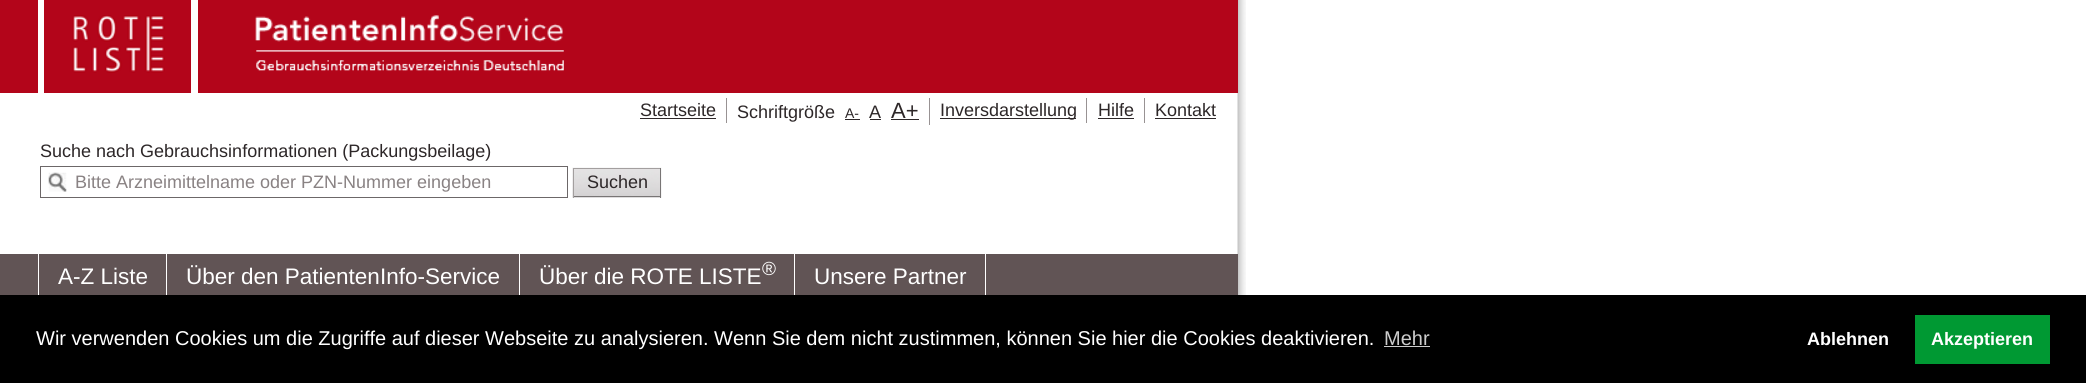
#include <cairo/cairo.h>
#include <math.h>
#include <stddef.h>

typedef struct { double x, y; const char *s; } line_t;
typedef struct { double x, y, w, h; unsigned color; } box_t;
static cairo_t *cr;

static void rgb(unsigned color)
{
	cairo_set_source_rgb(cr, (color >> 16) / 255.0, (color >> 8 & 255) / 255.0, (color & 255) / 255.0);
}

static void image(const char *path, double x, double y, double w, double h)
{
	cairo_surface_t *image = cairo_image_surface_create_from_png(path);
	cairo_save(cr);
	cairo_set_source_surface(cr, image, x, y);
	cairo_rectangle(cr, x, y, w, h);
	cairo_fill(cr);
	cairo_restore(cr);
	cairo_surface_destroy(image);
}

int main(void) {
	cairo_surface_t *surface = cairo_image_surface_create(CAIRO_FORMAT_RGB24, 2086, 383);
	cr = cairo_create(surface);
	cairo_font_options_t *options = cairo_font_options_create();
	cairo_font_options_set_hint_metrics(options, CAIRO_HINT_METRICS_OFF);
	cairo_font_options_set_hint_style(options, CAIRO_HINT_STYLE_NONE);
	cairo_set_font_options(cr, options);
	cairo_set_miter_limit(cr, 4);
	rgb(0xffffff);
	cairo_paint(cr);
	image("img/1.png", 1237, 0, 9, 295);
	{
		static const box_t items[] = {
			{0, 0, 1238, 93, 0xb3051a},
			{191, 0, 7, 93, 0xffffff},
			{38, 0, 6, 93, 0xffffff},
		};
		for (size_t i = 0; i < sizeof items / sizeof *items; i++) {
			rgb(items[i].color);
			cairo_rectangle(cr, items[i].x, items[i].y, items[i].w, items[i].h);
			cairo_fill(cr);
		}
	}
	image("img/2.png", 72, 15, 93, 58);
	image("img/3.png", 255, 15, 309, 56);
	{
		static const box_t items[] = {
			{726, 98, 1, 25, 0x989293},
			{640, 118, 76, 1, 0x2d2728},
			{929, 98, 1, 27, 0x989293},
			{845, 119, 15, 1, 0x2d2728},
			{870, 119, 11, 1, 0x2d2728},
			{891, 119, 28, 1, 0x2d2728},
			{1086, 98, 1, 25, 0x989293},
			{940, 118, 136, 1, 0x2d2728},
			{1144, 98, 1, 25, 0x989293},
			{1098, 118, 36, 1, 0x2d2728},
			{1155, 118, 61, 1, 0x2d2728},
		};
		for (size_t i = 0; i < sizeof items / sizeof *items; i++) {
			rgb(items[i].color);
			cairo_rectangle(cr, items[i].x, items[i].y, items[i].w, items[i].h);
			cairo_fill(cr);
		}
	}
	image("img/4.png", 48, 172, 19, 20);
	cairo_rectangle(cr, 40.5, 166.5, 527, 31);
	rgb(0x6c6768);
	cairo_set_line_width(cr, 1);
	cairo_stroke(cr);
	image("img/5.png", 572, 167, 90, 31);
	{
		static const box_t items[] = {
			{573, 168, 88, 1, 0xa39f9f},
			{660, 168, 1, 30, 0x787575},
			{573, 196, 88, 1, 0x787575},
			{573, 168, 1, 30, 0xa39f9f},
			{0, 254, 1238, 41, 0x615455},
			{38, 254, 1, 45, 0xffffff},
			{166, 254, 1, 45, 0xffffff},
			{519, 254, 1, 45, 0xffffff},
			{985, 254, 1, 45, 0xffffff},
			{794, 254, 1, 45, 0xffffff},
			{0, 295, 2086, 88, 0x000000},
			{1384, 346, 46, 1, 0xcccccc},
			{1915, 315, 135, 49, 0x009933},
		};
		for (size_t i = 0; i < sizeof items / sizeof *items; i++) {
			rgb(items[i].color);
			cairo_rectangle(cr, items[i].x, items[i].y, items[i].w, items[i].h);
			cairo_fill(cr);
		}
	}
	cairo_select_font_face(cr, "Liberation Sans", CAIRO_FONT_SLANT_NORMAL, CAIRO_FONT_WEIGHT_NORMAL);
	cairo_set_font_size(cr, 18);
	rgb(0x2d2728);
	cairo_move_to(cr, 640, 116);
	cairo_show_text(cr, "Startseite");
	cairo_move_to(cr, 737, 118);
	cairo_show_text(cr, "Schriftgröße");
	cairo_set_font_size(cr, 14);
	cairo_move_to(cr, 845, 118);
	cairo_show_text(cr, "A-");
	cairo_set_font_size(cr, 18);
	cairo_move_to(cr, 869, 118);
	cairo_show_text(cr, "A");
	cairo_set_font_size(cr, 22);
	cairo_move_to(cr, 891, 118);
	cairo_show_text(cr, "A+");
	cairo_set_font_size(cr, 18);
	{
		static const line_t items[] = {
			{940, 116, "Inversdarstellung"},
			{1098, 116, "Hilfe"},
			{1155, 116, "Kontakt"},
			{40, 157, "Suche nach Gebrauchsinformationen (Packungsbeilage)"},
		};
		for (size_t i = 0; i < sizeof items / sizeof *items; i++) {
			cairo_move_to(cr, items[i].x, items[i].y);
			cairo_show_text(cr, items[i].s);
		}
	}
	rgb(0x898283);
	cairo_move_to(cr, 75, 188);
	cairo_show_text(cr, "Bitte Arzneimittelname oder PZN-Nummer eingeben");
	rgb(0x2d2728);
	cairo_move_to(cr, 587, 188);
	cairo_show_text(cr, "Suchen");
	cairo_set_font_size(cr, 22.5);
	rgb(0xffffff);
	{
		static const line_t items[] = {
			{58, 284, "A-Z Liste"},
			{186, 284, "Über den PatientenInfo-Service"},
			{539, 284, "Über die ROTE LISTE"},
		};
		for (size_t i = 0; i < sizeof items / sizeof *items; i++) {
			cairo_move_to(cr, items[i].x, items[i].y);
			cairo_show_text(cr, items[i].s);
		}
	}
	cairo_set_font_size(cr, 19);
	cairo_move_to(cr, 762, 275);
	cairo_show_text(cr, "®");
	cairo_set_font_size(cr, 22.5);
	cairo_move_to(cr, 814, 284);
	cairo_show_text(cr, "Unsere Partner");
	cairo_set_font_size(cr, 20);
	cairo_move_to(cr, 36, 345);
	cairo_show_text(cr, "Wir verwenden Cookies um die Zugriffe auf dieser Webseite zu analysieren. Wenn Sie dem nicht zustimmen, können Sie hier die Cookies deaktivieren.");
	rgb(0xcccccc);
	cairo_move_to(cr, 1384, 345);
	cairo_show_text(cr, "Mehr");
	cairo_select_font_face(cr, "Liberation Sans", CAIRO_FONT_SLANT_NORMAL, CAIRO_FONT_WEIGHT_BOLD);
	cairo_set_font_size(cr, 18);
	rgb(0xffffff);
	cairo_move_to(cr, 1807, 345);
	cairo_show_text(cr, "Ablehnen");
	cairo_move_to(cr, 1931, 345);
	cairo_show_text(cr, "Akzeptieren");
	cairo_surface_write_to_png(surface, "page.png");
	cairo_font_options_destroy(options);
	cairo_destroy(cr);
	cairo_surface_destroy(surface);
	return 0;
}
